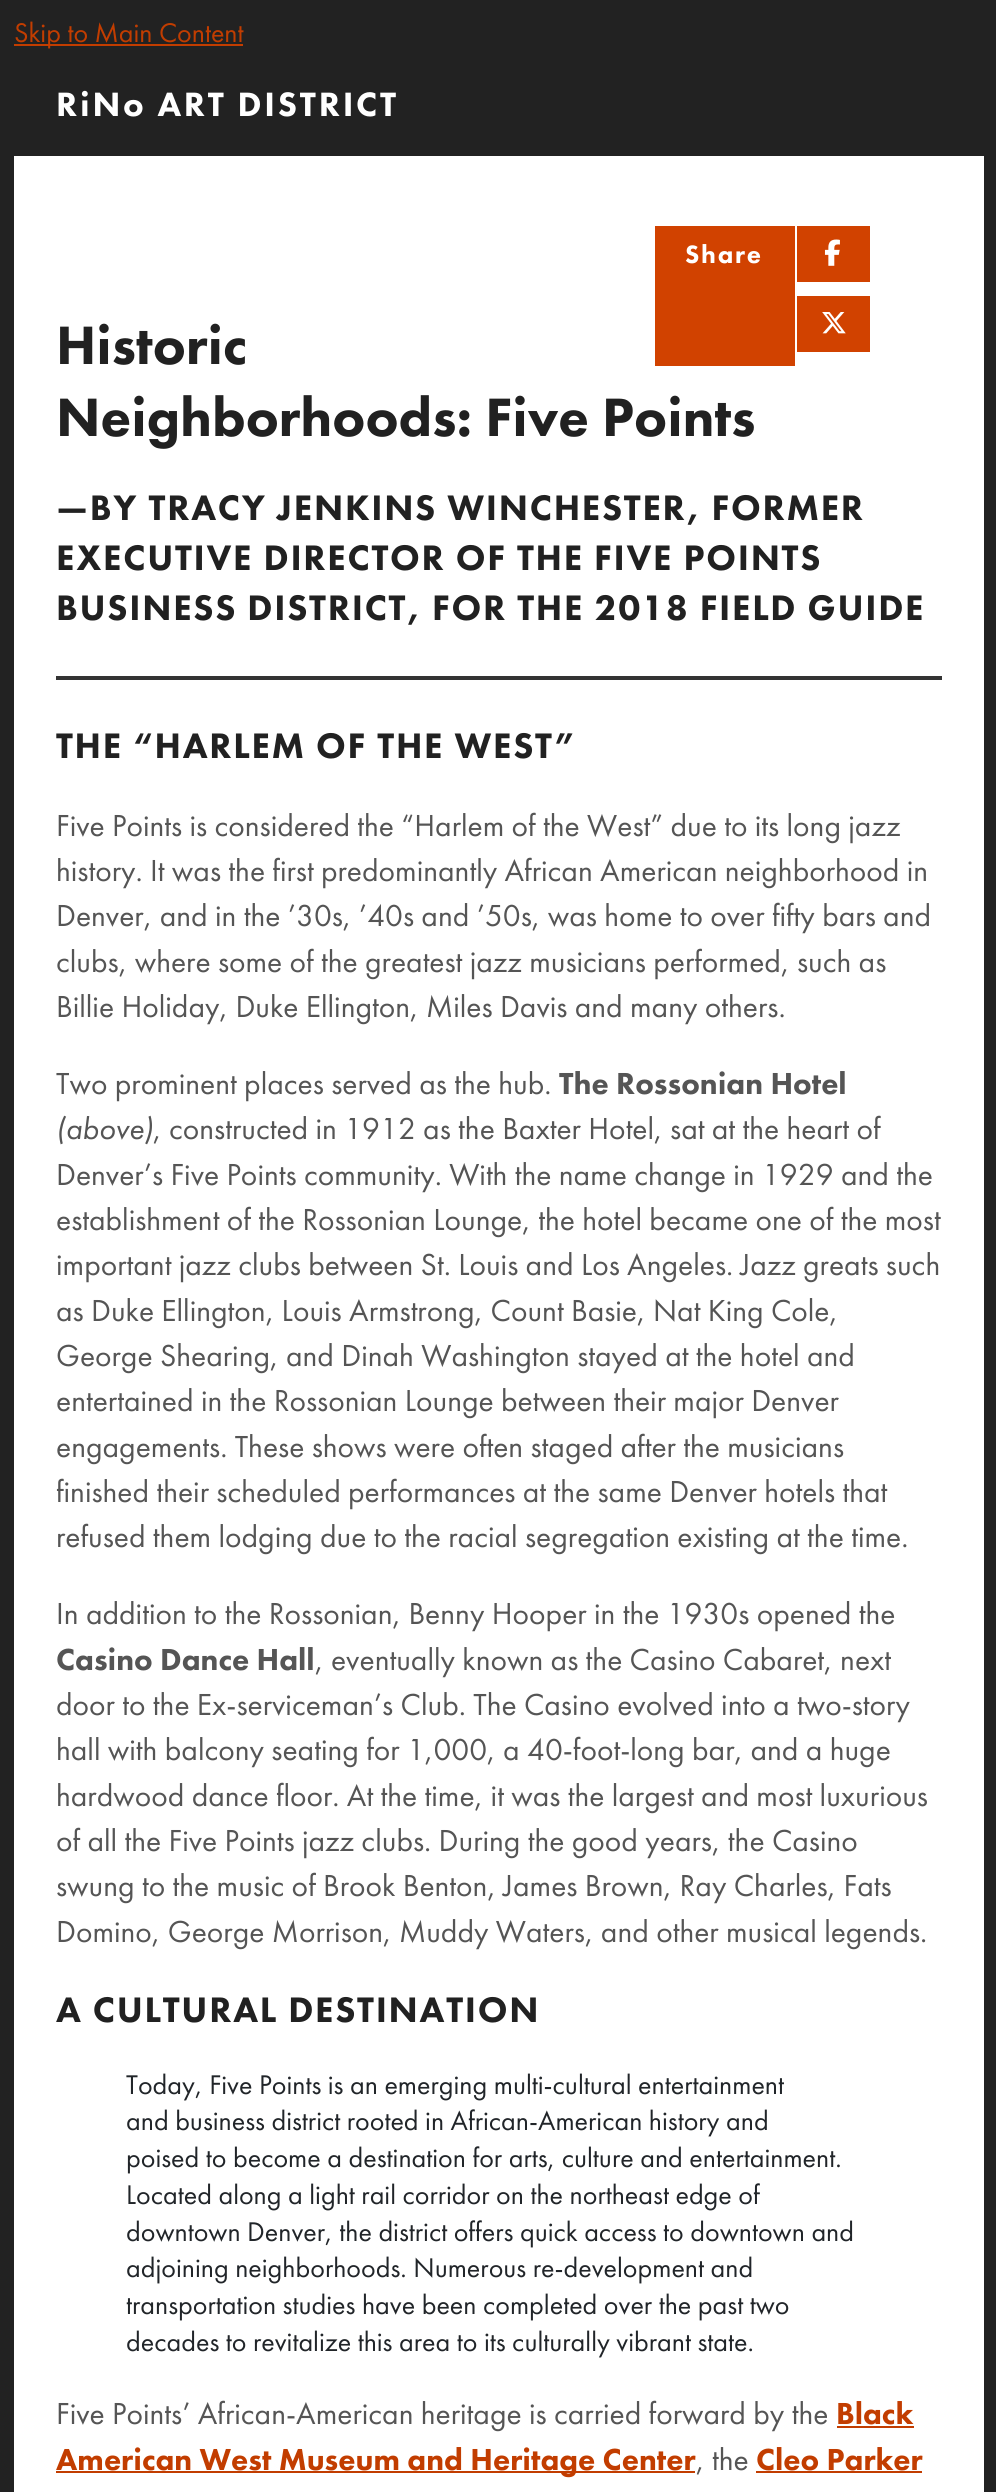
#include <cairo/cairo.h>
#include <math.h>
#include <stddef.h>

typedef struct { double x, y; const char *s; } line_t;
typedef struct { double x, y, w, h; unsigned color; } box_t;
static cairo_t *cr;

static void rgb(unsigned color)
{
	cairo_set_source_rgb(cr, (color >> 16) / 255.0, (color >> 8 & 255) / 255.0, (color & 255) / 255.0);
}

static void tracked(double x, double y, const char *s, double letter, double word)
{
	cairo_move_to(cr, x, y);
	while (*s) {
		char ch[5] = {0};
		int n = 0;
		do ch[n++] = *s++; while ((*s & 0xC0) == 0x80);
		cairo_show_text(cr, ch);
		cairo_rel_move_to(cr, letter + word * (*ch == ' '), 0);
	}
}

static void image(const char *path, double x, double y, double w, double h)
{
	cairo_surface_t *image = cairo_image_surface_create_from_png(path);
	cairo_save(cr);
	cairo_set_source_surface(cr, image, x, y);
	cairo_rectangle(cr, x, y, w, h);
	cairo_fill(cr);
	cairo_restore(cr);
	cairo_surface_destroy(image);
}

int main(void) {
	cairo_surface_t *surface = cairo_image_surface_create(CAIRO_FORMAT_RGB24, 996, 2492);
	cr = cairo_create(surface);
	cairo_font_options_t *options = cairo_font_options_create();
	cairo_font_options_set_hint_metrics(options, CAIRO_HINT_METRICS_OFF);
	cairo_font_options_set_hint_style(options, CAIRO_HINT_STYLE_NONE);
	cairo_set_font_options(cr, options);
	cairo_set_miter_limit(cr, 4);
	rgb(0x222222);
	cairo_paint(cr);
	{
		static const box_t items[] = {
			{14, 44, 229, 2, 0xc23d00},
			{14, 156, 970, 2336, 0xffffff},
			{655, 226, 140, 140, 0xd14200},
			{797, 226, 73, 56, 0xd14200},
		};
		for (size_t i = 0; i < sizeof items / sizeof *items; i++) {
			rgb(items[i].color);
			cairo_rectangle(cr, items[i].x, items[i].y, items[i].w, items[i].h);
			cairo_fill(cr);
		}
	}
	image("img/1.png", 824, 239, 16, 27);
	cairo_rectangle(cr, 797, 296, 73, 56);
	cairo_fill(cr);
	image("img/2.png", 822, 312, 24, 22);
	{
		static const box_t items[] = {
			{56, 676, 886, 4, 0x333333},
			{837, 2426, 77, 2, 0xc23d00},
			{56, 2471, 639, 2, 0xc23d00},
			{756, 2471, 166, 2, 0xc23d00},
		};
		for (size_t i = 0; i < sizeof items / sizeof *items; i++) {
			rgb(items[i].color);
			cairo_rectangle(cr, items[i].x, items[i].y, items[i].w, items[i].h);
			cairo_fill(cr);
		}
	}
	cairo_select_font_face(cr, "Futura PT", CAIRO_FONT_SLANT_NORMAL, CAIRO_FONT_WEIGHT_NORMAL);
	cairo_set_font_size(cr, 28);
	cairo_move_to(cr, 14, 42);
	cairo_show_text(cr, "Skip to Main Content");
	cairo_select_font_face(cr, "Futura PT Black", CAIRO_FONT_SLANT_NORMAL, CAIRO_FONT_WEIGHT_NORMAL);
	cairo_set_font_size(cr, 35);
	rgb(0xffffff);
	tracked(56, 116, "RiNo ART DISTRICT", 2.75, 0);
	cairo_set_font_size(cr, 26);
	tracked(685, 263, "Share", 1.75, 0);
	cairo_set_font_size(cr, 56);
	rgb(0x212121);
	cairo_move_to(cr, 56, 364);
	cairo_show_text(cr, "Historic");
	cairo_move_to(cr, 56, 436);
	cairo_show_text(cr, "Neighborhoods: Five Points");
	cairo_set_font_size(cr, 36.75);
	{
		static const line_t items[] = {
			{56, 520, "—BY TRACY JENKINS WINCHESTER, FORMER"},
			{56, 570, "EXECUTIVE DIRECTOR OF THE FIVE POINTS"},
			{56, 620, "BUSINESS DISTRICT, FOR THE 2018 FIELD GUIDE"},
			{56, 758, "THE “HARLEM OF THE WEST”"},
		};
		for (size_t i = 0; i < sizeof items / sizeof *items; i++) {
			tracked(items[i].x, items[i].y, items[i].s, 1.7, 0);
		}
	}
	cairo_select_font_face(cr, "Futura PT", CAIRO_FONT_SLANT_NORMAL, CAIRO_FONT_WEIGHT_NORMAL);
	cairo_set_font_size(cr, 31.5);
	rgb(0x555555);
	{
		static const line_t items[] = {
			{56, 836, "Five Points is considered the “Harlem of the West” due to its long jazz"},
			{56, 881, "history. It was the first predominantly African American neighborhood in"},
			{56, 926, "Denver, and in the ’30s, ’40s and ’50s, was home to over fifty bars and"},
			{56, 972, "clubs, where some of the greatest jazz musicians performed, such as"},
			{56, 1017, "Billie Holiday, Duke Ellington, Miles Davis and many others."},
			{56, 1094, "Two prominent places served as the hub."},
		};
		for (size_t i = 0; i < sizeof items / sizeof *items; i++) {
			cairo_move_to(cr, items[i].x, items[i].y);
			cairo_show_text(cr, items[i].s);
		}
	}
	cairo_select_font_face(cr, "Futura PT Black", CAIRO_FONT_SLANT_NORMAL, CAIRO_FONT_WEIGHT_NORMAL);
	cairo_move_to(cr, 559, 1094);
	cairo_show_text(cr, "The Rossonian Hotel");
	cairo_select_font_face(cr, "Futura PT", CAIRO_FONT_SLANT_ITALIC, CAIRO_FONT_WEIGHT_NORMAL);
	cairo_move_to(cr, 56, 1139);
	cairo_show_text(cr, "(above)");
	cairo_select_font_face(cr, "Futura PT", CAIRO_FONT_SLANT_NORMAL, CAIRO_FONT_WEIGHT_NORMAL);
	{
		static const line_t items[] = {
			{153, 1139, ", constructed in 1912 as the Baxter Hotel, sat at the heart of"},
			{56, 1185, "Denver’s Five Points community. With the name change in 1929 and the"},
			{56, 1230, "establishment of the Rossonian Lounge, the hotel became one of the most"},
			{56, 1275, "important jazz clubs between St. Louis and Los Angeles. Jazz greats such"},
			{56, 1321, "as Duke Ellington, Louis Armstrong, Count Basie, Nat King Cole,"},
			{56, 1366, "George Shearing, and Dinah Washington stayed at the hotel and"},
			{56, 1411, "entertained in the Rossonian Lounge between their major Denver"},
			{56, 1457, "engagements. These shows were often staged after the musicians"},
			{56, 1502, "finished their scheduled performances at the same Denver hotels that"},
			{56, 1547, "refused them lodging due to the racial segregation existing at the time."},
			{56, 1624, "In addition to the Rossonian, Benny Hooper in the 1930s opened the"},
		};
		for (size_t i = 0; i < sizeof items / sizeof *items; i++) {
			cairo_move_to(cr, items[i].x, items[i].y);
			cairo_show_text(cr, items[i].s);
		}
	}
	cairo_select_font_face(cr, "Futura PT Black", CAIRO_FONT_SLANT_NORMAL, CAIRO_FONT_WEIGHT_NORMAL);
	cairo_move_to(cr, 56, 1670);
	cairo_show_text(cr, "Casino Dance Hall");
	cairo_select_font_face(cr, "Futura PT", CAIRO_FONT_SLANT_NORMAL, CAIRO_FONT_WEIGHT_NORMAL);
	{
		static const line_t items[] = {
			{315, 1670, ", eventually known as the Casino Cabaret, next"},
			{56, 1715, "door to the Ex-serviceman’s Club. The Casino evolved into a two-story"},
			{56, 1760, "hall with balcony seating for 1,000, a 40-foot-long bar, and a huge"},
			{56, 1806, "hardwood dance floor. At the time, it was the largest and most luxurious"},
			{56, 1851, "of all the Five Points jazz clubs. During the good years, the Casino"},
			{56, 1896, "swung to the music of Brook Benton, James Brown, Ray Charles, Fats"},
			{56, 1942, "Domino, George Morrison, Muddy Waters, and other musical legends."},
		};
		for (size_t i = 0; i < sizeof items / sizeof *items; i++) {
			cairo_move_to(cr, items[i].x, items[i].y);
			cairo_show_text(cr, items[i].s);
		}
	}
	cairo_select_font_face(cr, "Futura PT Black", CAIRO_FONT_SLANT_NORMAL, CAIRO_FONT_WEIGHT_NORMAL);
	cairo_set_font_size(cr, 36.75);
	rgb(0x212121);
	tracked(56, 2022, "A CULTURAL DESTINATION", 1.7, 0);
	cairo_select_font_face(cr, "Futura PT", CAIRO_FONT_SLANT_NORMAL, CAIRO_FONT_WEIGHT_NORMAL);
	cairo_set_font_size(cr, 28);
	rgb(0x212529);
	{
		static const line_t items[] = {
			{126, 2094, "Today, Five Points is an emerging multi-cultural entertainment"},
			{126, 2130, "and business district rooted in African-American history and"},
			{126, 2167, "poised to become a destination for arts, culture and entertainment."},
			{126, 2204, "Located along a light rail corridor on the northeast edge of"},
			{126, 2241, "downtown Denver, the district offers quick access to downtown and"},
			{126, 2277, "adjoining neighborhoods. Numerous re-development and"},
			{126, 2314, "transportation studies have been completed over the past two"},
			{126, 2351, "decades to revitalize this area to its culturally vibrant state."},
		};
		for (size_t i = 0; i < sizeof items / sizeof *items; i++) {
			cairo_move_to(cr, items[i].x, items[i].y);
			cairo_show_text(cr, items[i].s);
		}
	}
	cairo_set_font_size(cr, 31.5);
	rgb(0x555555);
	cairo_move_to(cr, 56, 2424);
	cairo_show_text(cr, "Five Points’ African-American heritage is carried forward by the");
	cairo_select_font_face(cr, "Futura PT Black", CAIRO_FONT_SLANT_NORMAL, CAIRO_FONT_WEIGHT_NORMAL);
	rgb(0xc23d00);
	cairo_move_to(cr, 836, 2424);
	cairo_show_text(cr, "Black");
	cairo_move_to(cr, 56, 2470);
	cairo_show_text(cr, "American West Museum and Heritage Center");
	cairo_select_font_face(cr, "Futura PT", CAIRO_FONT_SLANT_NORMAL, CAIRO_FONT_WEIGHT_NORMAL);
	rgb(0x555555);
	cairo_move_to(cr, 696, 2470);
	cairo_show_text(cr, ", the");
	cairo_select_font_face(cr, "Futura PT Black", CAIRO_FONT_SLANT_NORMAL, CAIRO_FONT_WEIGHT_NORMAL);
	rgb(0xc23d00);
	cairo_move_to(cr, 756, 2470);
	cairo_show_text(cr, "Cleo Parker");
	cairo_surface_write_to_png(surface, "page.png");
	cairo_font_options_destroy(options);
	cairo_destroy(cr);
	cairo_surface_destroy(surface);
	return 0;
}
